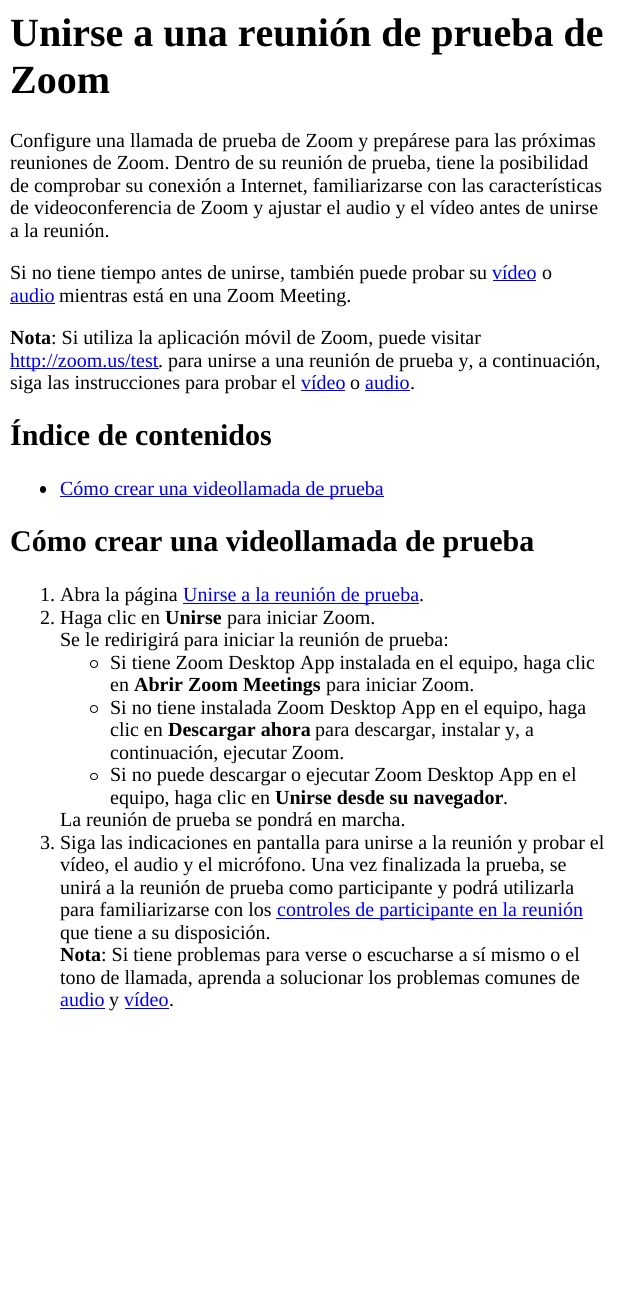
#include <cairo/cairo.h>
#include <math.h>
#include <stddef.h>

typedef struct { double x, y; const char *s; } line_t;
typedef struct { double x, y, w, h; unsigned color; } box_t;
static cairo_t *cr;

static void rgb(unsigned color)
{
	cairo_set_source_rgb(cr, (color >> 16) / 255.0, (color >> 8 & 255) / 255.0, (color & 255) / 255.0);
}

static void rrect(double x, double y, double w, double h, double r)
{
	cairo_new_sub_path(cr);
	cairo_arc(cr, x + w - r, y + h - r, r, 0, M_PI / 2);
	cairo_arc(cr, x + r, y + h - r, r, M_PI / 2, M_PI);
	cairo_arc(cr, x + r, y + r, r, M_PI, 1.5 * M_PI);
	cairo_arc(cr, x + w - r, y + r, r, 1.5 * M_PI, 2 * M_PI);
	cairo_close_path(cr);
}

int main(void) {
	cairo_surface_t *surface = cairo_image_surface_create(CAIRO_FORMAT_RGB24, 617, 1291);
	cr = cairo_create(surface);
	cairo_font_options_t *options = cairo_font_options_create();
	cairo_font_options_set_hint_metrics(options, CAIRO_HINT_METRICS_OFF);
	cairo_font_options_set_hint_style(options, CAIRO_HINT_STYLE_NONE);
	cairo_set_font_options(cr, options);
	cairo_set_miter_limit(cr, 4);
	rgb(0xffffff);
	cairo_paint(cr);
	{
		static const box_t items[] = {
			{493, 280, 43, 1, 0x0000ee},
			{10, 303, 45, 1, 0x0000ee},
			{10, 368, 149, 1, 0x0000ee},
			{301, 390, 44, 1, 0x0000ee},
			{365, 390, 45, 1, 0x0000ee},
		};
		for (size_t i = 0; i < sizeof items / sizeof *items; i++) {
			rgb(items[i].color);
			cairo_rectangle(cr, items[i].x, items[i].y, items[i].w, items[i].h);
			cairo_fill(cr);
		}
	}
	rgb(0x000000);
	rrect(40, 486, 6, 7, 3);
	cairo_fill(cr);
	rgb(0x0000ee);
	cairo_rectangle(cr, 60, 496, 324, 1);
	cairo_fill(cr);
	cairo_rectangle(cr, 183, 603, 236, 1);
	cairo_fill(cr);
	cairo_arc(cr, 94, 664, 3.5, 0, 2 * M_PI);
	rgb(0x000000);
	cairo_set_line_width(cr, 1);
	cairo_stroke(cr);
	cairo_arc(cr, 94, 709, 3.5, 0, 2 * M_PI);
	cairo_stroke(cr);
	rrect(90.5, 773.5, 7, 6, 3);
	cairo_stroke(cr);
	{
		static const box_t items[] = {
			{276, 918, 307, 1, 0x0000ee},
			{60, 1008, 45, 1, 0x0000ee},
			{125, 1008, 44, 1, 0x0000ee},
		};
		for (size_t i = 0; i < sizeof items / sizeof *items; i++) {
			rgb(items[i].color);
			cairo_rectangle(cr, items[i].x, items[i].y, items[i].w, items[i].h);
			cairo_fill(cr);
		}
	}
	cairo_select_font_face(cr, "Liberation Serif", CAIRO_FONT_SLANT_NORMAL, CAIRO_FONT_WEIGHT_BOLD);
	cairo_set_font_size(cr, 40);
	rgb(0x000000);
	cairo_move_to(cr, 10, 46);
	cairo_show_text(cr, "Unirse a una reunión de prueba de");
	cairo_move_to(cr, 10, 93);
	cairo_show_text(cr, "Zoom");
	cairo_select_font_face(cr, "Liberation Serif", CAIRO_FONT_SLANT_NORMAL, CAIRO_FONT_WEIGHT_NORMAL);
	cairo_set_font_size(cr, 20);
	{
		static const line_t items[] = {
			{10, 147, "Configure una llamada de prueba de Zoom y prepárese para las próximas"},
			{10, 169, "reuniones de Zoom. Dentro de su reunión de prueba, tiene la posibilidad"},
			{10, 192, "de comprobar su conexión a Internet, familiarizarse con las características"},
			{10, 214, "de videoconferencia de Zoom y ajustar el audio y el vídeo antes de unirse"},
			{10, 237, "a la reunión."},
			{10, 279, "Si no tiene tiempo antes de unirse, también puede probar su"},
		};
		for (size_t i = 0; i < sizeof items / sizeof *items; i++) {
			cairo_move_to(cr, items[i].x, items[i].y);
			cairo_show_text(cr, items[i].s);
		}
	}
	rgb(0x0000ee);
	cairo_move_to(cr, 492, 279);
	cairo_show_text(cr, "vídeo");
	rgb(0x000000);
	cairo_move_to(cr, 542, 279);
	cairo_show_text(cr, "o");
	rgb(0x0000ee);
	cairo_move_to(cr, 10, 302);
	cairo_show_text(cr, "audio");
	rgb(0x000000);
	cairo_move_to(cr, 59, 302);
	cairo_show_text(cr, "mientras está en una Zoom Meeting.");
	cairo_select_font_face(cr, "Liberation Serif", CAIRO_FONT_SLANT_NORMAL, CAIRO_FONT_WEIGHT_BOLD);
	cairo_move_to(cr, 10, 344);
	cairo_show_text(cr, "Nota");
	cairo_select_font_face(cr, "Liberation Serif", CAIRO_FONT_SLANT_NORMAL, CAIRO_FONT_WEIGHT_NORMAL);
	cairo_move_to(cr, 51, 344);
	cairo_show_text(cr, ": Si utiliza la aplicación móvil de Zoom, puede visitar");
	rgb(0x0000ee);
	cairo_move_to(cr, 10, 367);
	cairo_show_text(cr, "http://zoom.us/test");
	rgb(0x000000);
	cairo_move_to(cr, 158, 367);
	cairo_show_text(cr, ". para unirse a una reunión de prueba y, a continuación,");
	cairo_move_to(cr, 10, 389);
	cairo_show_text(cr, "siga las instrucciones para probar el");
	rgb(0x0000ee);
	cairo_move_to(cr, 301, 389);
	cairo_show_text(cr, "vídeo");
	rgb(0x000000);
	cairo_move_to(cr, 350, 389);
	cairo_show_text(cr, "o");
	rgb(0x0000ee);
	cairo_move_to(cr, 365, 389);
	cairo_show_text(cr, "audio");
	rgb(0x000000);
	cairo_move_to(cr, 410, 389);
	cairo_show_text(cr, ".");
	cairo_select_font_face(cr, "Liberation Serif", CAIRO_FONT_SLANT_NORMAL, CAIRO_FONT_WEIGHT_BOLD);
	cairo_set_font_size(cr, 30);
	cairo_move_to(cr, 10, 445);
	cairo_show_text(cr, "Índice de contenidos");
	cairo_select_font_face(cr, "Liberation Serif", CAIRO_FONT_SLANT_NORMAL, CAIRO_FONT_WEIGHT_NORMAL);
	cairo_set_font_size(cr, 20);
	rgb(0x0000ee);
	cairo_move_to(cr, 60, 495);
	cairo_show_text(cr, "Cómo crear una videollamada de prueba");
	cairo_select_font_face(cr, "Liberation Serif", CAIRO_FONT_SLANT_NORMAL, CAIRO_FONT_WEIGHT_BOLD);
	cairo_set_font_size(cr, 30);
	rgb(0x000000);
	cairo_move_to(cr, 10, 551);
	cairo_show_text(cr, "Cómo crear una videollamada de prueba");
	cairo_select_font_face(cr, "Liberation Serif", CAIRO_FONT_SLANT_NORMAL, CAIRO_FONT_WEIGHT_NORMAL);
	cairo_set_font_size(cr, 20);
	cairo_move_to(cr, 40, 601);
	cairo_show_text(cr, "1. Abra la página");
	rgb(0x0000ee);
	cairo_move_to(cr, 183, 601);
	cairo_show_text(cr, "Unirse a la reunión de prueba");
	rgb(0x000000);
	cairo_move_to(cr, 419, 601);
	cairo_show_text(cr, ".");
	cairo_move_to(cr, 40, 624);
	cairo_show_text(cr, "2. Haga clic en");
	cairo_select_font_face(cr, "Liberation Serif", CAIRO_FONT_SLANT_NORMAL, CAIRO_FONT_WEIGHT_BOLD);
	cairo_move_to(cr, 165, 624);
	cairo_show_text(cr, "Unirse");
	cairo_select_font_face(cr, "Liberation Serif", CAIRO_FONT_SLANT_NORMAL, CAIRO_FONT_WEIGHT_NORMAL);
	{
		static const line_t items[] = {
			{227, 624, "para iniciar Zoom."},
			{60, 646, "Se le redirigirá para iniciar la reunión de prueba:"},
			{110, 669, "Si tiene Zoom Desktop App instalada en el equipo, haga clic"},
			{110, 691, "en"},
		};
		for (size_t i = 0; i < sizeof items / sizeof *items; i++) {
			cairo_move_to(cr, items[i].x, items[i].y);
			cairo_show_text(cr, items[i].s);
		}
	}
	cairo_select_font_face(cr, "Liberation Serif", CAIRO_FONT_SLANT_NORMAL, CAIRO_FONT_WEIGHT_BOLD);
	cairo_move_to(cr, 134, 691);
	cairo_show_text(cr, "Abrir Zoom Meetings");
	cairo_select_font_face(cr, "Liberation Serif", CAIRO_FONT_SLANT_NORMAL, CAIRO_FONT_WEIGHT_NORMAL);
	{
		static const line_t items[] = {
			{326, 691, "para iniciar Zoom."},
			{110, 714, "Si no tiene instalada Zoom Desktop App en el equipo, haga"},
			{110, 736, "clic en"},
		};
		for (size_t i = 0; i < sizeof items / sizeof *items; i++) {
			cairo_move_to(cr, items[i].x, items[i].y);
			cairo_show_text(cr, items[i].s);
		}
	}
	cairo_select_font_face(cr, "Liberation Serif", CAIRO_FONT_SLANT_NORMAL, CAIRO_FONT_WEIGHT_BOLD);
	cairo_move_to(cr, 168, 736);
	cairo_show_text(cr, "Descargar ahora");
	cairo_select_font_face(cr, "Liberation Serif", CAIRO_FONT_SLANT_NORMAL, CAIRO_FONT_WEIGHT_NORMAL);
	{
		static const line_t items[] = {
			{315, 736, "para descargar, instalar y, a"},
			{110, 759, "continuación, ejecutar Zoom."},
			{110, 781, "Si no puede descargar o ejecutar Zoom Desktop App en el"},
			{110, 804, "equipo, haga clic en"},
		};
		for (size_t i = 0; i < sizeof items / sizeof *items; i++) {
			cairo_move_to(cr, items[i].x, items[i].y);
			cairo_show_text(cr, items[i].s);
		}
	}
	cairo_select_font_face(cr, "Liberation Serif", CAIRO_FONT_SLANT_NORMAL, CAIRO_FONT_WEIGHT_BOLD);
	cairo_move_to(cr, 275, 804);
	cairo_show_text(cr, "Unirse desde su navegador");
	cairo_select_font_face(cr, "Liberation Serif", CAIRO_FONT_SLANT_NORMAL, CAIRO_FONT_WEIGHT_NORMAL);
	{
		static const line_t items[] = {
			{503, 804, "."},
			{60, 826, "La reunión de prueba se pondrá en marcha."},
			{40, 849, "3. Siga las indicaciones en pantalla para unirse a la reunión y probar el"},
			{60, 871, "vídeo, el audio y el micrófono. Una vez finalizada la prueba, se"},
			{60, 894, "unirá a la reunión de prueba como participante y podrá utilizarla"},
			{60, 916, "para familiarizarse con los"},
		};
		for (size_t i = 0; i < sizeof items / sizeof *items; i++) {
			cairo_move_to(cr, items[i].x, items[i].y);
			cairo_show_text(cr, items[i].s);
		}
	}
	rgb(0x0000ee);
	cairo_move_to(cr, 277, 916);
	cairo_show_text(cr, "controles de participante en la reunión");
	rgb(0x000000);
	cairo_move_to(cr, 60, 939);
	cairo_show_text(cr, "que tiene a su disposición.");
	cairo_select_font_face(cr, "Liberation Serif", CAIRO_FONT_SLANT_NORMAL, CAIRO_FONT_WEIGHT_BOLD);
	cairo_move_to(cr, 60, 961);
	cairo_show_text(cr, "Nota");
	cairo_select_font_face(cr, "Liberation Serif", CAIRO_FONT_SLANT_NORMAL, CAIRO_FONT_WEIGHT_NORMAL);
	cairo_move_to(cr, 101, 961);
	cairo_show_text(cr, ": Si tiene problemas para verse o escucharse a sí mismo o el");
	cairo_move_to(cr, 60, 984);
	cairo_show_text(cr, "tono de llamada, aprenda a solucionar los problemas comunes de");
	rgb(0x0000ee);
	cairo_move_to(cr, 60, 1006);
	cairo_show_text(cr, "audio");
	rgb(0x000000);
	cairo_move_to(cr, 109, 1006);
	cairo_show_text(cr, "y");
	rgb(0x0000ee);
	cairo_move_to(cr, 124, 1006);
	cairo_show_text(cr, "vídeo");
	rgb(0x000000);
	cairo_move_to(cr, 169, 1006);
	cairo_show_text(cr, ".");
	cairo_surface_write_to_png(surface, "page.png");
	cairo_font_options_destroy(options);
	cairo_destroy(cr);
	cairo_surface_destroy(surface);
	return 0;
}
